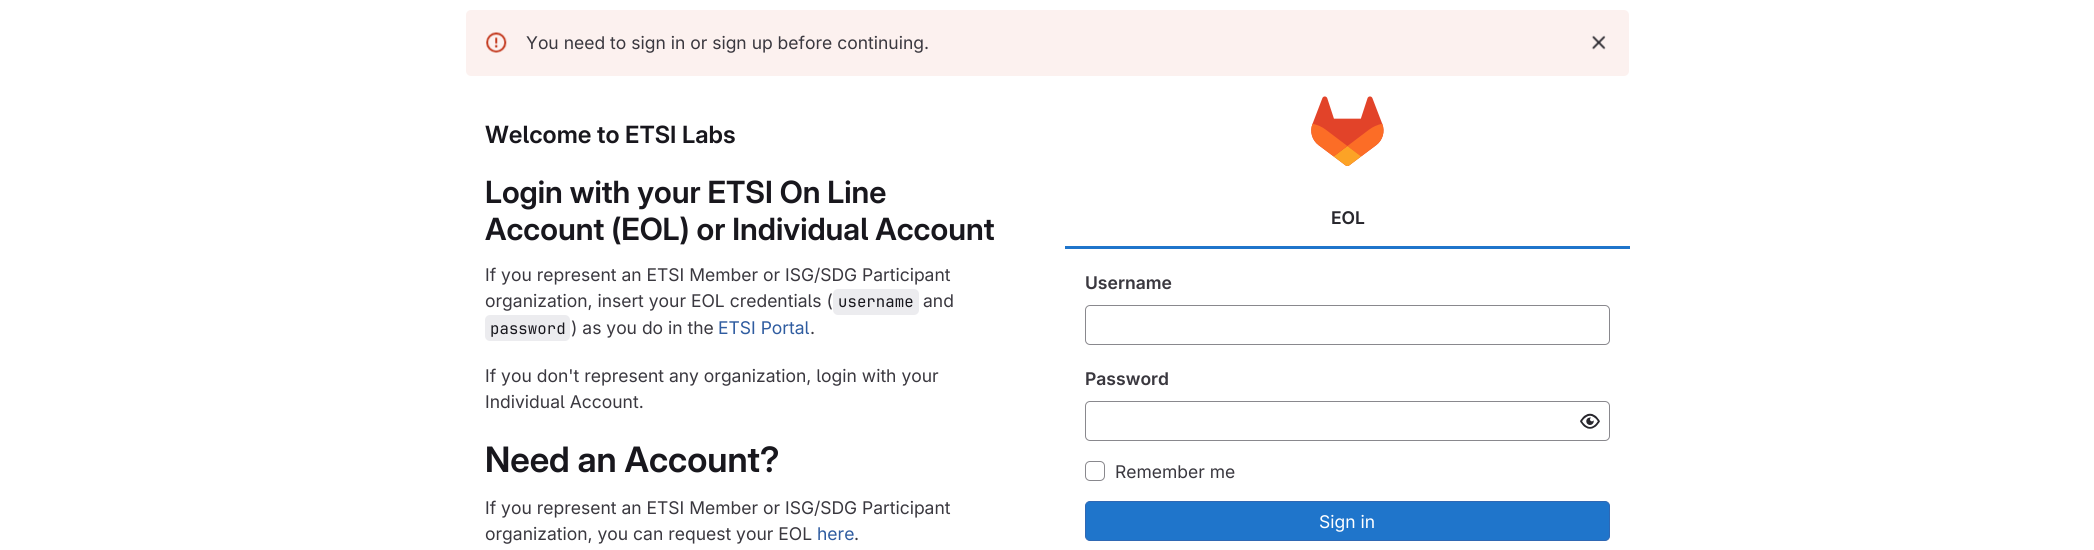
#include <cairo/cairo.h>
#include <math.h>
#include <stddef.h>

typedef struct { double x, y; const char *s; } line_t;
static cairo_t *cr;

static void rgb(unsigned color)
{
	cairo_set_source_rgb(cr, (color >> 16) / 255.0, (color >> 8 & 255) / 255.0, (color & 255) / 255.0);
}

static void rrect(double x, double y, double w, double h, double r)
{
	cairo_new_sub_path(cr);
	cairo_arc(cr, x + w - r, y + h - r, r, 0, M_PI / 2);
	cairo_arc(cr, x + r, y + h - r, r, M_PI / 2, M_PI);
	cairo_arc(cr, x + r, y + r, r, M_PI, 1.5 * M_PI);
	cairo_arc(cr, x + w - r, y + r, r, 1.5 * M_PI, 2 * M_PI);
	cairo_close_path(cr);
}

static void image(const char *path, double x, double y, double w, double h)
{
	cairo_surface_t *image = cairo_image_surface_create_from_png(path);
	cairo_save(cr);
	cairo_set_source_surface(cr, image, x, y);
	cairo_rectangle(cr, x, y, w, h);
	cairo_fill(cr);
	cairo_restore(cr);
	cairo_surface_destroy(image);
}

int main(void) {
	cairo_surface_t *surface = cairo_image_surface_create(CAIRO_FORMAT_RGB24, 2094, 550);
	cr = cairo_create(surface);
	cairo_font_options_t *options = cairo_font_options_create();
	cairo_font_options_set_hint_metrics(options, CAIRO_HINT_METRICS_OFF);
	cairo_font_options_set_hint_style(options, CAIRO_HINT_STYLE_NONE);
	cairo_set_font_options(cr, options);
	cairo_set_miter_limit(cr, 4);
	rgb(0xffffff);
	cairo_paint(cr);
	rgb(0xfcf1ef);
	rrect(466, 10, 1163, 66, 5);
	cairo_fill(cr);
	image("img/1.png", 486, 32, 21, 21);
	image("img/2.png", 1591, 35, 15, 15);
	rgb(0xececef);
	rrect(833, 289, 86, 26, 5);
	cairo_fill(cr);
	rrect(485, 315, 85, 26, 5);
	cairo_fill(cr);
	image("img/3.png", 1311, 96, 73, 70);
	rgb(0x1f75cb);
	cairo_rectangle(cr, 1065, 246, 565, 3);
	cairo_fill(cr);
	rrect(1085.5, 305.5, 524, 39, 4.5);
	rgb(0x89888d);
	cairo_set_line_width(cr, 1);
	cairo_stroke(cr);
	rrect(1085.5, 401.5, 524, 39, 4.5);
	cairo_stroke(cr);
	image("img/4.png", 1580, 413, 20, 16);
	rrect(1085.5, 461.5, 19, 19, 4.5);
	cairo_stroke(cr);
	rgb(0x1f75cb);
	rrect(1085.5, 501.5, 524, 39, 4.5);
	cairo_fill_preserve(cr);
	rgb(0x2f68b4);
	cairo_stroke(cr);
	cairo_select_font_face(cr, "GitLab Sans", CAIRO_FONT_SLANT_NORMAL, CAIRO_FONT_WEIGHT_NORMAL);
	cairo_set_font_size(cr, 17.5);
	rgb(0x3a383f);
	cairo_move_to(cr, 526, 49);
	cairo_show_text(cr, "You need to sign in or sign up before continuing.");
	cairo_select_font_face(cr, "GitLab Sans SemiBold", CAIRO_FONT_SLANT_NORMAL, CAIRO_FONT_WEIGHT_NORMAL);
	cairo_set_font_size(cr, 23.75);
	rgb(0x18171d);
	cairo_move_to(cr, 485, 143);
	cairo_show_text(cr, "Welcome to ETSI Labs");
	cairo_select_font_face(cr, "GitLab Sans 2 SemiBold", CAIRO_FONT_SLANT_NORMAL, CAIRO_FONT_WEIGHT_NORMAL);
	cairo_set_font_size(cr, 30.6);
	cairo_move_to(cr, 485, 203);
	cairo_show_text(cr, "Login with your ETSI On Line");
	cairo_move_to(cr, 485, 240);
	cairo_show_text(cr, "Account (EOL) or Individual Account");
	cairo_select_font_face(cr, "GitLab Sans", CAIRO_FONT_SLANT_NORMAL, CAIRO_FONT_WEIGHT_NORMAL);
	cairo_set_font_size(cr, 17.5);
	rgb(0x3a383f);
	cairo_move_to(cr, 485, 281);
	cairo_show_text(cr, "If you represent an ETSI Member or ISG/SDG Participant");
	cairo_move_to(cr, 485, 307);
	cairo_show_text(cr, "organization, insert your EOL credentials (");
	cairo_select_font_face(cr, "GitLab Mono", CAIRO_FONT_SLANT_NORMAL, CAIRO_FONT_WEIGHT_NORMAL);
	cairo_set_font_size(cr, 15.75);
	rgb(0x18171d);
	cairo_move_to(cr, 838, 307);
	cairo_show_text(cr, "username");
	cairo_select_font_face(cr, "GitLab Sans", CAIRO_FONT_SLANT_NORMAL, CAIRO_FONT_WEIGHT_NORMAL);
	cairo_set_font_size(cr, 17.5);
	rgb(0x3a383f);
	cairo_move_to(cr, 923, 307);
	cairo_show_text(cr, "and");
	cairo_select_font_face(cr, "GitLab Mono", CAIRO_FONT_SLANT_NORMAL, CAIRO_FONT_WEIGHT_NORMAL);
	cairo_set_font_size(cr, 15.75);
	rgb(0x18171d);
	cairo_move_to(cr, 490, 334);
	cairo_show_text(cr, "password");
	cairo_select_font_face(cr, "GitLab Sans", CAIRO_FONT_SLANT_NORMAL, CAIRO_FONT_WEIGHT_NORMAL);
	cairo_set_font_size(cr, 17.5);
	rgb(0x3a383f);
	cairo_move_to(cr, 571, 334);
	cairo_show_text(cr, ") as you do in the");
	rgb(0x2f5ca0);
	cairo_move_to(cr, 718, 334);
	cairo_show_text(cr, "ETSI Portal");
	rgb(0x3a383f);
	{
		static const line_t items[] = {
			{810, 334, "."},
			{485, 382, "If you don't represent any organization, login with your"},
			{485, 408, "Individual Account."},
		};
		for (size_t i = 0; i < sizeof items / sizeof *items; i++) {
			cairo_move_to(cr, items[i].x, items[i].y);
			cairo_show_text(cr, items[i].s);
		}
	}
	cairo_select_font_face(cr, "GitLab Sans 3 SemiBold", CAIRO_FONT_SLANT_NORMAL, CAIRO_FONT_WEIGHT_NORMAL);
	cairo_set_font_size(cr, 35);
	rgb(0x18171d);
	cairo_move_to(cr, 485, 472);
	cairo_show_text(cr, "Need an Account?");
	cairo_select_font_face(cr, "GitLab Sans", CAIRO_FONT_SLANT_NORMAL, CAIRO_FONT_WEIGHT_NORMAL);
	cairo_set_font_size(cr, 17.5);
	rgb(0x3a383f);
	cairo_move_to(cr, 485, 514);
	cairo_show_text(cr, "If you represent an ETSI Member or ISG/SDG Participant");
	cairo_move_to(cr, 485, 540);
	cairo_show_text(cr, "organization, you can request your EOL");
	rgb(0x2f5ca0);
	cairo_move_to(cr, 817, 540);
	cairo_show_text(cr, "here");
	rgb(0x3a383f);
	cairo_move_to(cr, 854, 540);
	cairo_show_text(cr, ".");
	cairo_select_font_face(cr, "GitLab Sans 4 SemiBold", CAIRO_FONT_SLANT_NORMAL, CAIRO_FONT_WEIGHT_NORMAL);
	rgb(0x28272d);
	cairo_move_to(cr, 1331, 224);
	cairo_show_text(cr, "EOL");
	rgb(0x3a383f);
	cairo_move_to(cr, 1085, 289);
	cairo_show_text(cr, "Username");
	cairo_move_to(cr, 1085, 385);
	cairo_show_text(cr, "Password");
	cairo_select_font_face(cr, "GitLab Sans", CAIRO_FONT_SLANT_NORMAL, CAIRO_FONT_WEIGHT_NORMAL);
	cairo_move_to(cr, 1115, 478);
	cairo_show_text(cr, "Remember me");
	rgb(0xffffff);
	cairo_move_to(cr, 1319, 528);
	cairo_show_text(cr, "Sign in");
	cairo_surface_write_to_png(surface, "page.png");
	cairo_font_options_destroy(options);
	cairo_destroy(cr);
	cairo_surface_destroy(surface);
	return 0;
}
